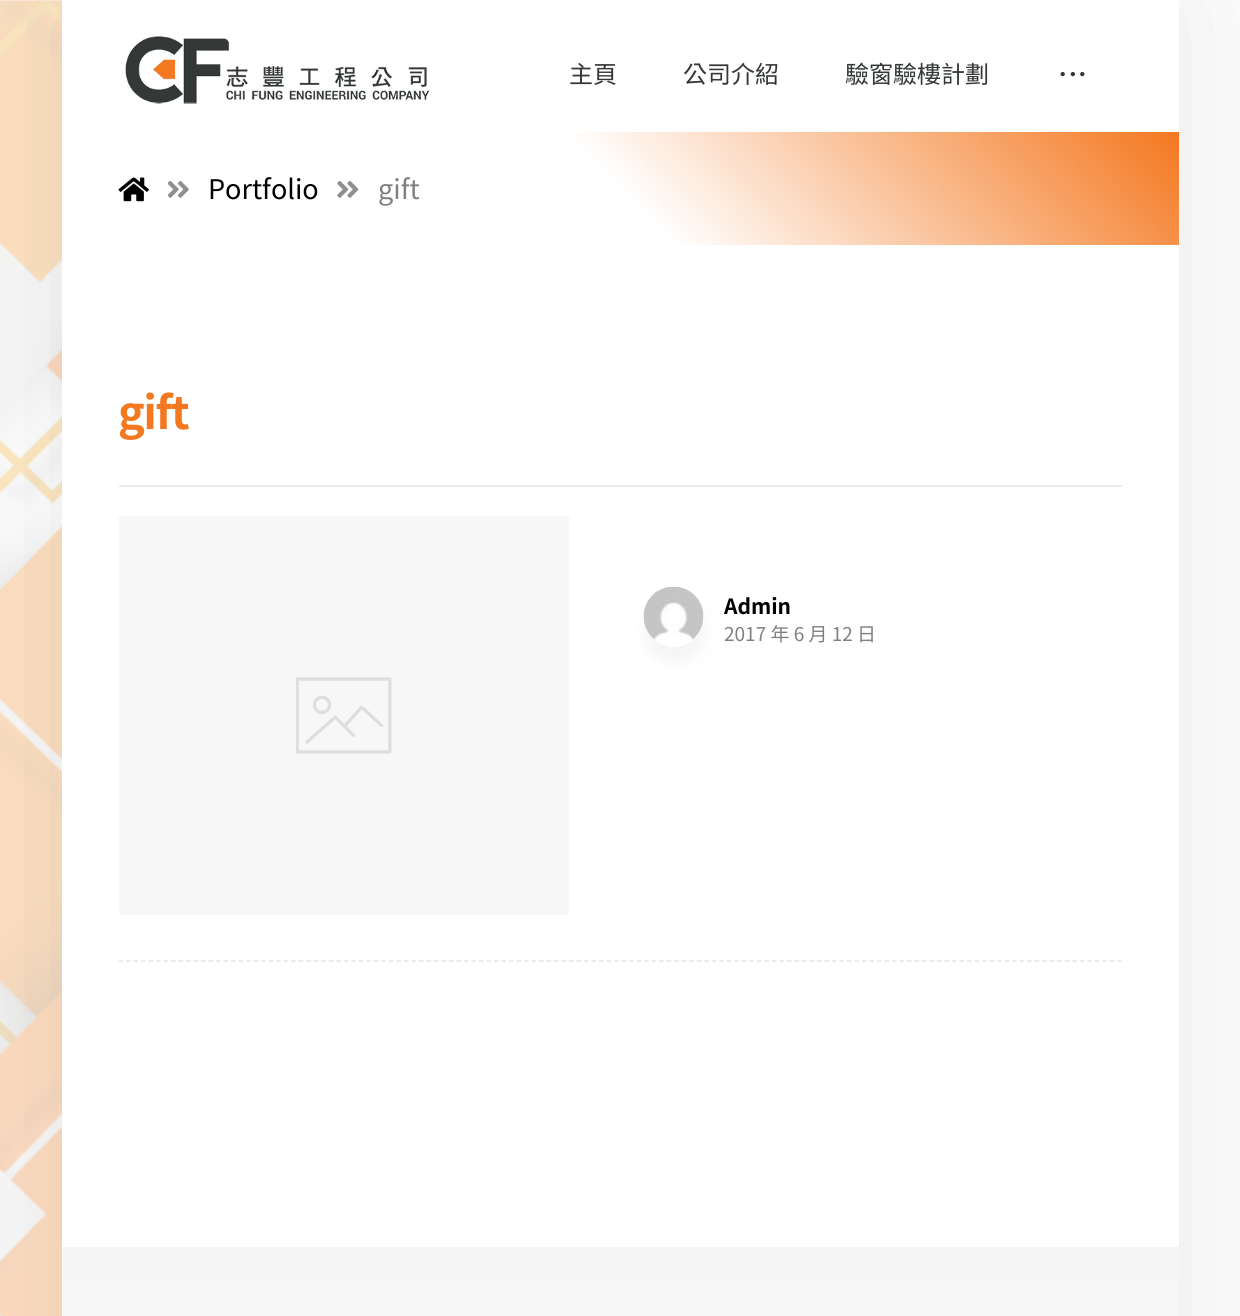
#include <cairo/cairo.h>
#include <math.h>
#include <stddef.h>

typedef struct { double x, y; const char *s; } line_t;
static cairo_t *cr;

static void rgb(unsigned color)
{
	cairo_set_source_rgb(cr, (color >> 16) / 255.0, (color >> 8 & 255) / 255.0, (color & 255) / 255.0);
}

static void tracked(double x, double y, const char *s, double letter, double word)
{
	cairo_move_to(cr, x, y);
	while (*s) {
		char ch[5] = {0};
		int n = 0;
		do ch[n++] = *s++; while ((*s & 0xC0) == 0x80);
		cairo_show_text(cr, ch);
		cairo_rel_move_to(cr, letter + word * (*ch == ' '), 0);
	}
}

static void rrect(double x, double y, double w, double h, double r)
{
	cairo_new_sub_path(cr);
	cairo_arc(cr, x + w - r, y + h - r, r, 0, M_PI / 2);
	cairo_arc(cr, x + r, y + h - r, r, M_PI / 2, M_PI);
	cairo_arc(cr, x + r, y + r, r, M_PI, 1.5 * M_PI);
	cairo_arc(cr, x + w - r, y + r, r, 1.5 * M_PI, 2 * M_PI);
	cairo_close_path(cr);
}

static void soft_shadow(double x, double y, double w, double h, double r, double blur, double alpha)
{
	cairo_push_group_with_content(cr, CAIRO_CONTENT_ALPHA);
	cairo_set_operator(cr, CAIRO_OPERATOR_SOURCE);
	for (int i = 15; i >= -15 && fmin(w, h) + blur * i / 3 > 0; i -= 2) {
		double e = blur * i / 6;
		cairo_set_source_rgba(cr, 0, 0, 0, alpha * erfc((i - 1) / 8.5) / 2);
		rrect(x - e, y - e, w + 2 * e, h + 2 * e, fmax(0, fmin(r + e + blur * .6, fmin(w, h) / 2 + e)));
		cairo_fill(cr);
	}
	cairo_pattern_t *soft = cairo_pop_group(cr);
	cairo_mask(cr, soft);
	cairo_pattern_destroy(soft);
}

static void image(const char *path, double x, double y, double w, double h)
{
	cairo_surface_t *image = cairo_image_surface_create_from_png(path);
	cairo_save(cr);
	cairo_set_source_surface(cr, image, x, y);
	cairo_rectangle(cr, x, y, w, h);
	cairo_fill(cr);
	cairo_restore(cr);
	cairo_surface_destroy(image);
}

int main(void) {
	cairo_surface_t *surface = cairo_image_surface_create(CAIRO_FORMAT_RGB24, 1240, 1316);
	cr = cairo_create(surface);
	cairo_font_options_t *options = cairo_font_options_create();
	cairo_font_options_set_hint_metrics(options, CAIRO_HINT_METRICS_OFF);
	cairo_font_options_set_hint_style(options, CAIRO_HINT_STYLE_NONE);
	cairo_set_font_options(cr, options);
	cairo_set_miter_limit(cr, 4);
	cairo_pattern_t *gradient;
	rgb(0xffffff);
	cairo_paint(cr);
	image("img/1.png", 0, 0, 62, 1316);
	rgb(0x000000);
	soft_shadow(62, 0, 1117, 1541, 0, 75, 0.1);
	rgb(0xffffff);
	cairo_rectangle(cr, 62, 0, 1117, 1247);
	cairo_fill(cr);
	image("img/2.png", 125, 36, 305, 68);
	image("img/3.png", 1060, 71, 25, 6);
	gradient = cairo_pattern_create_linear(937, -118, 303, 495);
	cairo_pattern_add_color_stop_rgba(gradient, 0, 0.957, 0.471, 0.125, 1);
	cairo_pattern_add_color_stop_rgba(gradient, 0.5, 1, 1, 1, 1);
	cairo_pattern_add_color_stop_rgba(gradient, 1, 1, 1, 1, 1);
	cairo_set_source(cr, gradient);
	cairo_pattern_destroy(gradient);
	cairo_rectangle(cr, 573, 132, 606, 113);
	cairo_fill(cr);
	image("img/4.png", 118, 177, 31, 25);
	image("img/5.png", 167, 181, 22, 17);
	image("img/6.png", 337, 181, 22, 17);
	rgb(0xededed);
	cairo_rectangle(cr, 119, 485, 1003, 2);
	cairo_fill(cr);
	cairo_new_path(cr);
	cairo_move_to(cr, 118.5, 961);
	cairo_line_to(cr, 1122, 961);
	rgb(0xe5e5e5);
	cairo_set_line_width(cr, 1.5);
	cairo_set_dash(cr, (double[]){4.5, 3.01}, 2, 0);
	cairo_stroke(cr);
	rgb(0xf7f7f7);
	cairo_rectangle(cr, 119, 516, 450, 399);
	cairo_fill(cr);
	image("img/7.png", 296, 677, 96, 77);
	cairo_save(cr);
	cairo_set_fill_rule(cr, CAIRO_FILL_RULE_EVEN_ODD);
	cairo_new_path(cr);
	cairo_move_to(cr, 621, 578);
	cairo_line_to(cr, 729, 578);
	cairo_line_to(cr, 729, 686);
	cairo_line_to(cr, 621, 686);
	cairo_close_path(cr);
	cairo_move_to(cr, 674, 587);
	cairo_curve_to(cr, 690.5, 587, 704, 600.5, 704, 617);
	cairo_curve_to(cr, 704, 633.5, 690.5, 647, 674, 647);
	cairo_curve_to(cr, 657.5, 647, 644, 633.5, 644, 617);
	cairo_curve_to(cr, 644, 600.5, 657.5, 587, 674, 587);
	cairo_close_path(cr);
	cairo_clip(cr);
	rgb(0xa7a7a7);
	soft_shadow(645, 602, 60, 60, 30, 7.5, 0.12);
	cairo_restore(cr);
	image("img/8.png", 643, 586, 61, 54);
	gradient = cairo_pattern_create_linear(620, 1247, 620, 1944);
	cairo_pattern_add_color_stop_rgba(gradient, 0, 0.961, 0.961, 0.961, 1);
	cairo_pattern_add_color_stop_rgba(gradient, 1, 1, 1, 1, 1);
	cairo_set_source(cr, gradient);
	cairo_pattern_destroy(gradient);
	cairo_rectangle(cr, 62, 1247, 1117, 69);
	cairo_fill(cr);
	cairo_select_font_face(cr, "Noto Sans TC", CAIRO_FONT_SLANT_NORMAL, CAIRO_FONT_WEIGHT_NORMAL);
	cairo_set_font_size(cr, 24);
	rgb(0x343838);
	{
		static const line_t items[] = {
			{569, 83, "主頁"},
			{683, 83, "公司介紹"},
			{845, 83, "驗窗驗樓計劃"},
		};
		for (size_t i = 0; i < sizeof items / sizeof *items; i++) {
			cairo_move_to(cr, items[i].x, items[i].y);
			cairo_show_text(cr, items[i].s);
		}
	}
	cairo_set_font_size(cr, 27);
	rgb(0x000000);
	cairo_move_to(cr, 208, 199);
	cairo_show_text(cr, "Portfolio");
	rgb(0x808080);
	cairo_move_to(cr, 378, 199);
	cairo_show_text(cr, "gift");
	cairo_select_font_face(cr, "Noto Sans TC", CAIRO_FONT_SLANT_NORMAL, CAIRO_FONT_WEIGHT_BOLD);
	cairo_set_font_size(cr, 45);
	rgb(0xf47820);
	tracked(118, 429, "gift", -1.5, 0);
	cairo_set_font_size(cr, 21);
	rgb(0x000000);
	cairo_move_to(cr, 724, 614);
	cairo_show_text(cr, "Admin");
	cairo_select_font_face(cr, "Noto Sans TC", CAIRO_FONT_SLANT_NORMAL, CAIRO_FONT_WEIGHT_NORMAL);
	cairo_set_font_size(cr, 19);
	rgb(0x808080);
	cairo_move_to(cr, 724, 641);
	cairo_show_text(cr, "2017 年 6 月 12 日");
	cairo_surface_write_to_png(surface, "page.png");
	cairo_font_options_destroy(options);
	cairo_destroy(cr);
	cairo_surface_destroy(surface);
	return 0;
}
